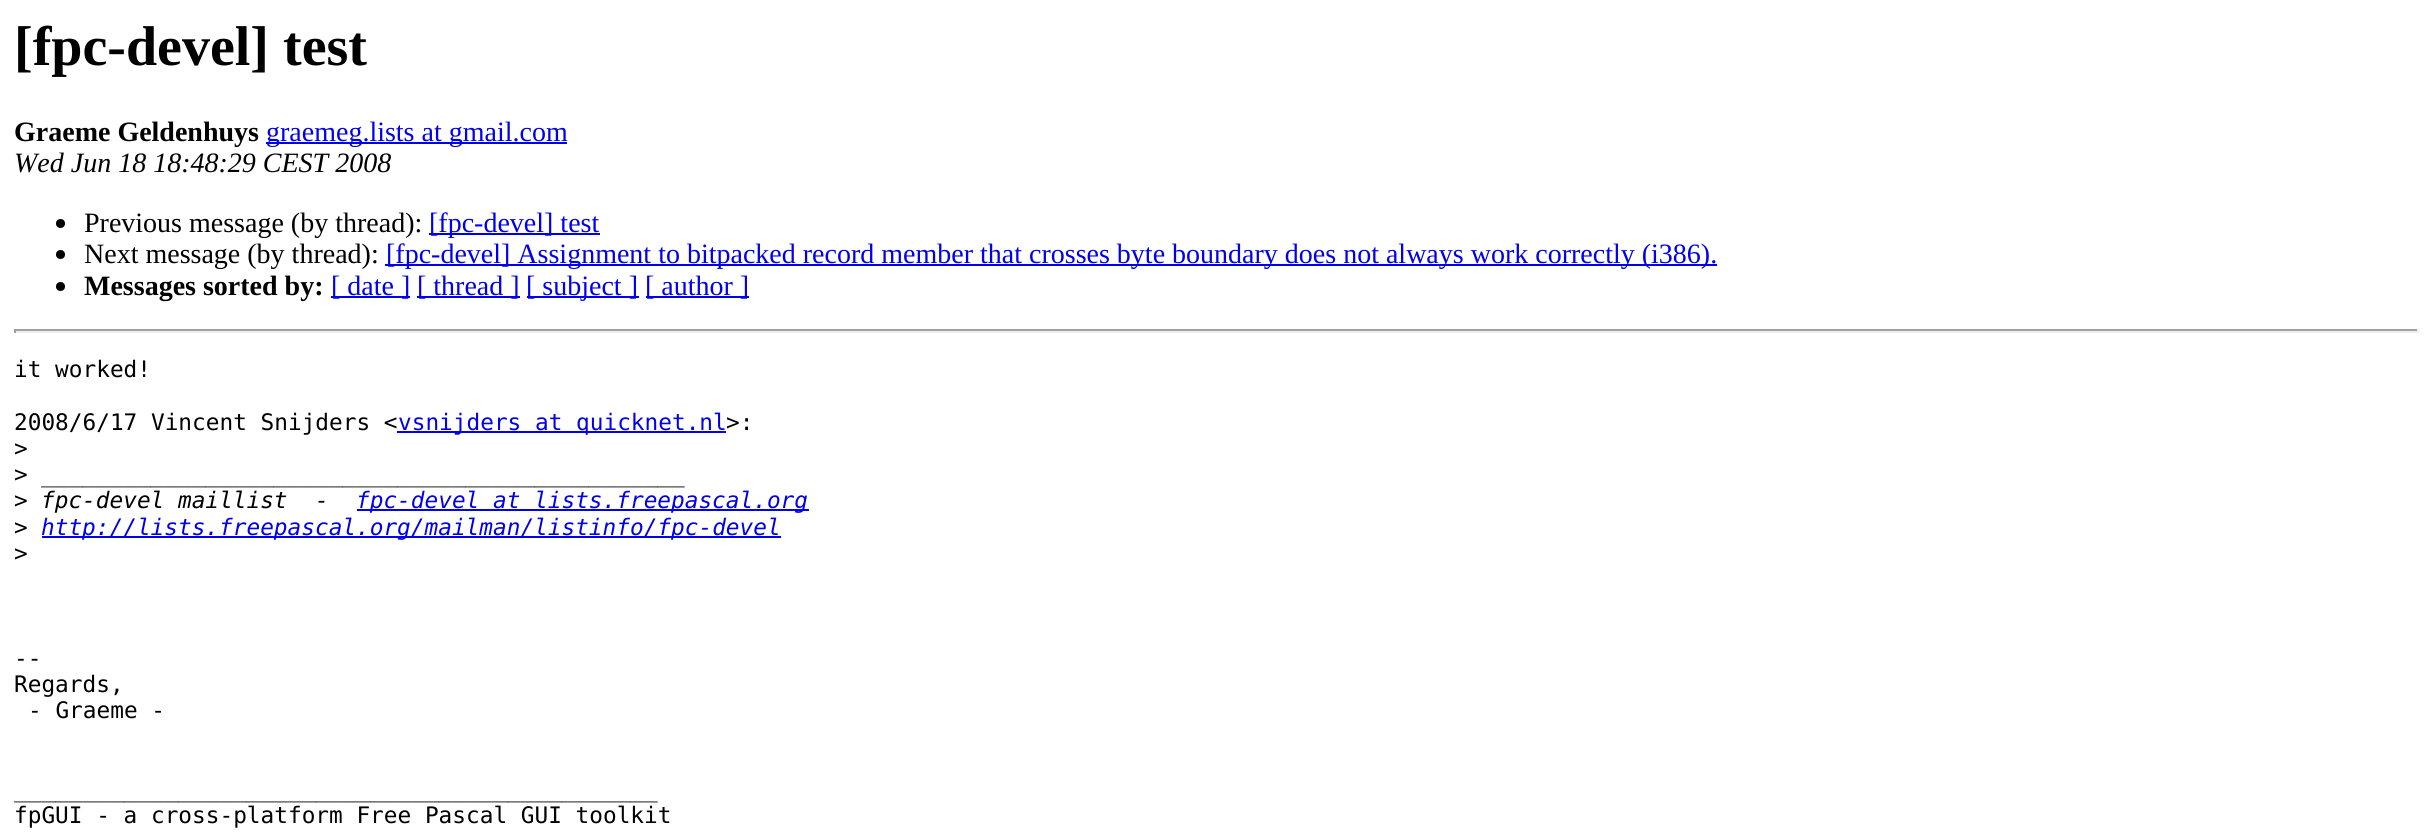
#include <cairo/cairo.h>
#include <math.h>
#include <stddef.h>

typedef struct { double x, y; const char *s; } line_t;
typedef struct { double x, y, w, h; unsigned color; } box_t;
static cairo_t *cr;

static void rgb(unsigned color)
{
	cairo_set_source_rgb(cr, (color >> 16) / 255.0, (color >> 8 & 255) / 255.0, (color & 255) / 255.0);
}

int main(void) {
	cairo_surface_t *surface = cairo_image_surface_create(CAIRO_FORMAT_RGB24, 2431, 836);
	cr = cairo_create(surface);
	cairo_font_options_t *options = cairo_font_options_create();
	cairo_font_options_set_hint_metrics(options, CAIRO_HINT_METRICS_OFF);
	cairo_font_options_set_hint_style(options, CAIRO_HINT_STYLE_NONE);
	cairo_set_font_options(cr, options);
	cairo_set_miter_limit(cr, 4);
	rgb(0xffffff);
	cairo_paint(cr);
	rgb(0x0000ee);
	cairo_rectangle(cr, 266, 142, 301, 2);
	cairo_fill(cr);
	rgb(0x000000);
	cairo_arc(cr, 60.5, 223.5, 4.5, 0, 2 * M_PI);
	cairo_fill(cr);
	rgb(0x0000ee);
	cairo_rectangle(cr, 429, 233, 171, 2);
	cairo_fill(cr);
	rgb(0x000000);
	cairo_arc(cr, 60.5, 254.5, 4.5, 0, 2 * M_PI);
	cairo_fill(cr);
	rgb(0x0000ee);
	cairo_rectangle(cr, 385, 264, 1332, 2);
	cairo_fill(cr);
	rgb(0x000000);
	cairo_arc(cr, 60.5, 286.5, 4.5, 0, 2 * M_PI);
	cairo_fill(cr);
	{
		static const box_t items[] = {
			{331, 296, 79, 2, 0x0000ee},
			{417, 296, 103, 2, 0x0000ee},
			{527, 296, 112, 2, 0x0000ee},
			{646, 296, 103, 2, 0x0000ee},
			{14, 329, 2405, 2, 0x9f9f9f},
			{2417, 329, 2, 4, 0xeeeeee},
			{14, 331, 2405, 2, 0xeeeeee},
			{14, 329, 2, 4, 0x9f9f9f},
			{397, 431, 329, 2, 0x0000ee},
			{357, 509, 452, 2, 0x0000ee},
			{42, 536, 739, 2, 0x0000ee},
		};
		for (size_t i = 0; i < sizeof items / sizeof *items; i++) {
			rgb(items[i].color);
			cairo_rectangle(cr, items[i].x, items[i].y, items[i].w, items[i].h);
			cairo_fill(cr);
		}
	}
	cairo_select_font_face(cr, "Liberation Serif", CAIRO_FONT_SLANT_NORMAL, CAIRO_FONT_WEIGHT_BOLD);
	cairo_set_font_size(cr, 56);
	rgb(0x000000);
	cairo_move_to(cr, 14, 65);
	cairo_show_text(cr, "[fpc-devel] test");
	cairo_set_font_size(cr, 28);
	cairo_move_to(cr, 14, 141);
	cairo_show_text(cr, "Graeme Geldenhuys");
	cairo_select_font_face(cr, "Liberation Serif", CAIRO_FONT_SLANT_NORMAL, CAIRO_FONT_WEIGHT_NORMAL);
	rgb(0x0000ee);
	cairo_move_to(cr, 266, 141);
	cairo_show_text(cr, "graemeg.lists at gmail.com");
	cairo_select_font_face(cr, "Liberation Serif", CAIRO_FONT_SLANT_ITALIC, CAIRO_FONT_WEIGHT_NORMAL);
	rgb(0x000000);
	cairo_move_to(cr, 14, 172);
	cairo_show_text(cr, "Wed Jun 18 18:48:29 CEST 2008");
	cairo_select_font_face(cr, "Liberation Serif", CAIRO_FONT_SLANT_NORMAL, CAIRO_FONT_WEIGHT_NORMAL);
	cairo_move_to(cr, 84, 232);
	cairo_show_text(cr, "Previous message (by thread):");
	rgb(0x0000ee);
	cairo_move_to(cr, 429, 232);
	cairo_show_text(cr, "[fpc-devel] test");
	rgb(0x000000);
	cairo_move_to(cr, 84, 263);
	cairo_show_text(cr, "Next message (by thread):");
	rgb(0x0000ee);
	cairo_move_to(cr, 386, 263);
	cairo_show_text(cr, "[fpc-devel] Assignment to bitpacked record member that crosses byte boundary does not always work correctly (i386).");
	cairo_select_font_face(cr, "Liberation Serif", CAIRO_FONT_SLANT_NORMAL, CAIRO_FONT_WEIGHT_BOLD);
	rgb(0x000000);
	cairo_move_to(cr, 84, 295);
	cairo_show_text(cr, "Messages sorted by:");
	cairo_select_font_face(cr, "Liberation Serif", CAIRO_FONT_SLANT_NORMAL, CAIRO_FONT_WEIGHT_NORMAL);
	rgb(0x0000ee);
	{
		static const line_t items[] = {
			{331, 295, "[ date ]"},
			{417, 295, "[ thread ]"},
			{526, 295, "[ subject ]"},
			{645, 295, "[ author ]"},
		};
		for (size_t i = 0; i < sizeof items / sizeof *items; i++) {
			cairo_move_to(cr, items[i].x, items[i].y);
			cairo_show_text(cr, items[i].s);
		}
	}
	cairo_select_font_face(cr, "DejaVu Sans Mono", CAIRO_FONT_SLANT_NORMAL, CAIRO_FONT_WEIGHT_NORMAL);
	cairo_set_font_size(cr, 22.75);
	rgb(0x000000);
	cairo_move_to(cr, 14, 377);
	cairo_show_text(cr, "it worked!");
	cairo_move_to(cr, 14, 430);
	cairo_show_text(cr, "2008/6/17 Vincent Snijders <");
	rgb(0x0000ee);
	cairo_move_to(cr, 398, 430);
	cairo_show_text(cr, "vsnijders at quicknet.nl");
	rgb(0x000000);
	{
		static const line_t items[] = {
			{726, 430, ">:"},
			{14, 456, ">"},
			{14, 482, ">"},
		};
		for (size_t i = 0; i < sizeof items / sizeof *items; i++) {
			cairo_move_to(cr, items[i].x, items[i].y);
			cairo_show_text(cr, items[i].s);
		}
	}
	cairo_select_font_face(cr, "DejaVu Sans Mono", CAIRO_FONT_SLANT_ITALIC, CAIRO_FONT_WEIGHT_NORMAL);
	cairo_move_to(cr, 41, 482);
	cairo_show_text(cr, "_______________________________________________");
	cairo_select_font_face(cr, "DejaVu Sans Mono", CAIRO_FONT_SLANT_NORMAL, CAIRO_FONT_WEIGHT_NORMAL);
	cairo_move_to(cr, 14, 508);
	cairo_show_text(cr, ">");
	cairo_select_font_face(cr, "DejaVu Sans Mono", CAIRO_FONT_SLANT_ITALIC, CAIRO_FONT_WEIGHT_NORMAL);
	cairo_move_to(cr, 41, 508);
	cairo_show_text(cr, "fpc-devel maillist  -");
	rgb(0x0000ee);
	cairo_move_to(cr, 356, 508);
	cairo_show_text(cr, "fpc-devel at lists.freepascal.org");
	cairo_select_font_face(cr, "DejaVu Sans Mono", CAIRO_FONT_SLANT_NORMAL, CAIRO_FONT_WEIGHT_NORMAL);
	rgb(0x000000);
	cairo_move_to(cr, 14, 535);
	cairo_show_text(cr, ">");
	cairo_select_font_face(cr, "DejaVu Sans Mono", CAIRO_FONT_SLANT_ITALIC, CAIRO_FONT_WEIGHT_NORMAL);
	rgb(0x0000ee);
	cairo_move_to(cr, 41, 535);
	cairo_show_text(cr, "http://lists.freepascal.org/mailman/listinfo/fpc-devel");
	cairo_select_font_face(cr, "DejaVu Sans Mono", CAIRO_FONT_SLANT_NORMAL, CAIRO_FONT_WEIGHT_NORMAL);
	rgb(0x000000);
	{
		static const line_t items[] = {
			{14, 561, ">"},
			{14, 666, "--"},
			{14, 692, "Regards,"},
			{28, 718, "- Graeme -"},
			{14, 797, "_______________________________________________"},
			{14, 823, "fpGUI - a cross-platform Free Pascal GUI toolkit"},
		};
		for (size_t i = 0; i < sizeof items / sizeof *items; i++) {
			cairo_move_to(cr, items[i].x, items[i].y);
			cairo_show_text(cr, items[i].s);
		}
	}
	cairo_surface_write_to_png(surface, "page.png");
	cairo_font_options_destroy(options);
	cairo_destroy(cr);
	cairo_surface_destroy(surface);
	return 0;
}
